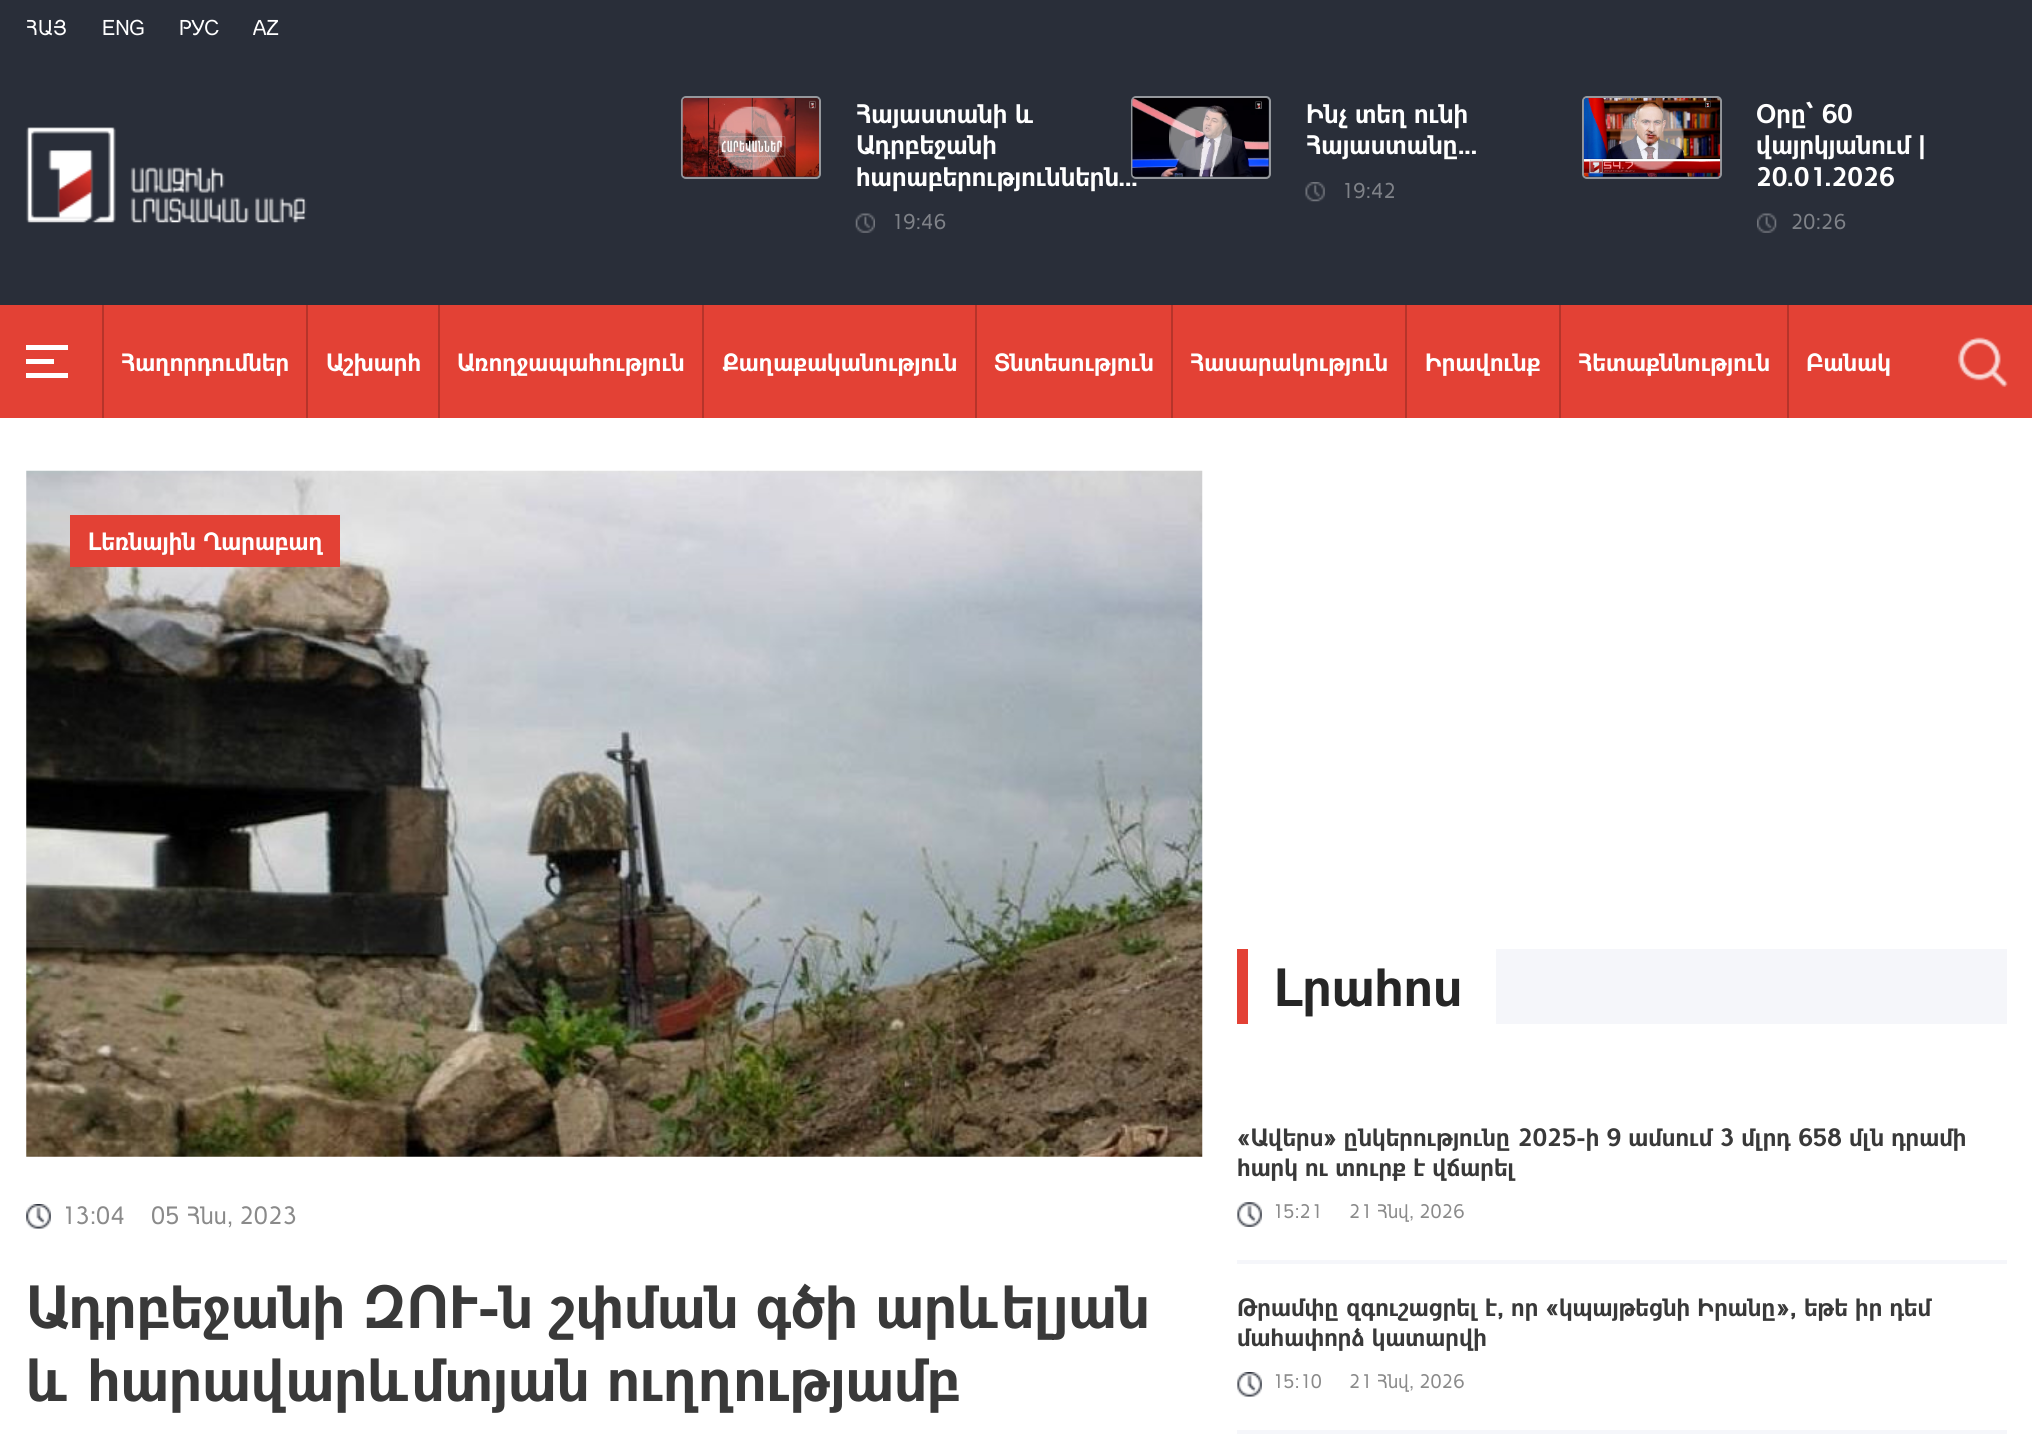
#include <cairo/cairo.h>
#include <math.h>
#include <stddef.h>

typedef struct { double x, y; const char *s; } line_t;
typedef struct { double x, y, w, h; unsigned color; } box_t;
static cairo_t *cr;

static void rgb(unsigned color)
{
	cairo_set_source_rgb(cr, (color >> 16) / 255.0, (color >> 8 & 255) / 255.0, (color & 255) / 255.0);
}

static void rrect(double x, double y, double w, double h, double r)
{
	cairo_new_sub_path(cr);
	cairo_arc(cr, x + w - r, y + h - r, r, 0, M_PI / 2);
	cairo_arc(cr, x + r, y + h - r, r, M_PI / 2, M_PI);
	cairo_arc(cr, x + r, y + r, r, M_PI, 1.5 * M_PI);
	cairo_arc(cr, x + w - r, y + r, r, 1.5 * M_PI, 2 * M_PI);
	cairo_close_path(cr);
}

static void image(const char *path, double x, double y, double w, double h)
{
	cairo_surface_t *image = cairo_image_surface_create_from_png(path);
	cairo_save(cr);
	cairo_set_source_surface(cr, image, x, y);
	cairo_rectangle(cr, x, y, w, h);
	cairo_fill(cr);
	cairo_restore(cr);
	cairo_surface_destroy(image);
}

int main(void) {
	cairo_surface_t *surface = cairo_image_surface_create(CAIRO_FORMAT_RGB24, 2032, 1440);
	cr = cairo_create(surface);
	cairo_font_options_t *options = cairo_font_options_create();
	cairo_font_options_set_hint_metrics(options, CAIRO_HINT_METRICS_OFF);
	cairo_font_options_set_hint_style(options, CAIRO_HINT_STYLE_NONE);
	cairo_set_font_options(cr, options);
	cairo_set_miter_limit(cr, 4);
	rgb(0xffffff);
	cairo_paint(cr);
	rgb(0x292e39);
	cairo_rectangle(cr, 0, 0, 2032, 305);
	cairo_fill(cr);
	image("img/1.png", 26, 127, 281, 96);
	rrect(682, 97, 138, 81, 4);
	rgb(0x94979c);
	cairo_stroke(cr);
	image("img/2.png", 682, 98, 137, 79);
	image("img/3.png", 719, 106, 64, 64);
	image("img/4.png", 855, 213, 20, 20);
	image("img/7.png", 1305, 182, 20, 20);
	rrect(1583, 97, 138, 81, 4);
	cairo_stroke(cr);
	image("img/8.png", 1583, 98, 138, 79);
	image("img/9.png", 1620, 106, 64, 64);
	image("img/10.png", 1757, 213, 20, 20);
	{
		static const box_t items[] = {
			{0, 305, 2032, 113, 0xe34135},
			{26, 345, 42, 5, 0xffffff},
			{26, 359, 28, 5, 0xffffff},
			{26, 373, 42, 5, 0xffffff},
			{102, 305, 2, 113, 0xb6342a},
			{306, 305, 2, 113, 0xb6342a},
			{438, 305, 2, 113, 0xb6342a},
			{702, 305, 2, 113, 0xb6342a},
			{975, 305, 2, 113, 0xb6342a},
			{1171, 305, 2, 113, 0xb6342a},
			{1405, 305, 2, 113, 0xb6342a},
			{1559, 305, 2, 113, 0xb6342a},
			{1787, 305, 2, 113, 0xb6342a},
		};
		for (size_t i = 0; i < sizeof items / sizeof *items; i++) {
			rgb(items[i].color);
			cairo_rectangle(cr, items[i].x, items[i].y, items[i].w, items[i].h);
			cairo_fill(cr);
		}
	}
	image("img/11.png", 1958, 337, 50, 50);
	image("img/12.png", 26, 470, 1177, 687);
	rgb(0xe34135);
	cairo_rectangle(cr, 70, 515, 270, 52);
	cairo_fill(cr);
	image("img/13.png", 26, 1204, 25, 25);
	{
		static const box_t items[] = {
			{1496, 949, 511, 75, 0xf5f6fa},
			{1237, 949, 11, 75, 0xe34135},
			{1237, 1260, 770, 4, 0xf5f6fa},
		};
		for (size_t i = 0; i < sizeof items / sizeof *items; i++) {
			rgb(items[i].color);
			cairo_rectangle(cr, items[i].x, items[i].y, items[i].w, items[i].h);
			cairo_fill(cr);
		}
	}
	image("img/14.png", 1237, 1202, 25, 25);
	cairo_rectangle(cr, 1237, 1430, 770, 4);
	cairo_fill(cr);
	image("img/15.png", 1237, 1372, 25, 25);
	cairo_select_font_face(cr, "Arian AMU", CAIRO_FONT_SLANT_NORMAL, CAIRO_FONT_WEIGHT_NORMAL);
	cairo_set_font_size(cr, 21);
	rgb(0xffffff);
	{
		static const line_t items[] = {
			{26, 35, "ՀԱՅ"},
			{102, 35, "ENG"},
			{179, 35, "РУС"},
			{253, 35, "AZ"},
		};
		for (size_t i = 0; i < sizeof items / sizeof *items; i++) {
			cairo_move_to(cr, items[i].x, items[i].y);
			cairo_show_text(cr, items[i].s);
		}
	}
	cairo_select_font_face(cr, "Arian AMU", CAIRO_FONT_SLANT_NORMAL, CAIRO_FONT_WEIGHT_BOLD);
	cairo_set_font_size(cr, 26.25);
	{
		static const line_t items[] = {
			{856, 123, "Հայաստանի և"},
			{856, 154, "Ադրբեջանի"},
			{856, 186, "հարաբերություններն..."},
		};
		for (size_t i = 0; i < sizeof items / sizeof *items; i++) {
			cairo_move_to(cr, items[i].x, items[i].y);
			cairo_show_text(cr, items[i].s);
		}
	}
	cairo_select_font_face(cr, "Arian AMU", CAIRO_FONT_SLANT_NORMAL, CAIRO_FONT_WEIGHT_NORMAL);
	cairo_set_font_size(cr, 21);
	rgb(0x7f8288);
	cairo_move_to(cr, 891, 229);
	cairo_show_text(cr, "19:46");
	rrect(1132, 97, 138, 81, 4);
	rgb(0x94979c);
	cairo_stroke(cr);
	image("img/5.png", 1132, 98, 137, 79);
	image("img/6.png", 1169, 106, 63, 64);
	cairo_select_font_face(cr, "Arian AMU", CAIRO_FONT_SLANT_NORMAL, CAIRO_FONT_WEIGHT_BOLD);
	cairo_set_font_size(cr, 26.25);
	rgb(0xffffff);
	cairo_move_to(cr, 1306, 123);
	cairo_show_text(cr, "Ինչ տեղ ունի");
	cairo_move_to(cr, 1306, 154);
	cairo_show_text(cr, "Հայաստանը...");
	cairo_select_font_face(cr, "Arian AMU", CAIRO_FONT_SLANT_NORMAL, CAIRO_FONT_WEIGHT_NORMAL);
	cairo_set_font_size(cr, 21);
	rgb(0x7f8288);
	cairo_move_to(cr, 1341, 198);
	cairo_show_text(cr, "19:42");
	cairo_select_font_face(cr, "Arian AMU", CAIRO_FONT_SLANT_NORMAL, CAIRO_FONT_WEIGHT_BOLD);
	cairo_set_font_size(cr, 26.25);
	rgb(0xffffff);
	{
		static const line_t items[] = {
			{1756, 123, "Օրը՝ 60"},
			{1756, 154, "վայրկյանում |"},
			{1756, 186, "20.01.2026"},
		};
		for (size_t i = 0; i < sizeof items / sizeof *items; i++) {
			cairo_move_to(cr, items[i].x, items[i].y);
			cairo_show_text(cr, items[i].s);
		}
	}
	cairo_select_font_face(cr, "Arian AMU", CAIRO_FONT_SLANT_NORMAL, CAIRO_FONT_WEIGHT_NORMAL);
	cairo_set_font_size(cr, 21);
	rgb(0x7f8288);
	cairo_move_to(cr, 1791, 229);
	cairo_show_text(cr, "20:26");
	cairo_select_font_face(cr, "Arian AMU", CAIRO_FONT_SLANT_NORMAL, CAIRO_FONT_WEIGHT_BOLD);
	cairo_set_font_size(cr, 24.5);
	rgb(0xffffff);
	{
		static const line_t items[] = {
			{121, 371, "Հաղորդումներ"},
			{326, 371, "Աշխարհ"},
			{457, 371, "Առողջապահություն"},
			{722, 371, "Քաղաքականություն"},
			{994, 371, "Տնտեսություն"},
			{1190, 371, "Հասարակություն"},
			{1425, 371, "Իրավունք"},
			{1578, 371, "Հետաքննություն"},
			{1806, 371, "Բանակ"},
			{88, 550, "Լեռնային Ղարաբաղ"},
		};
		for (size_t i = 0; i < sizeof items / sizeof *items; i++) {
			cairo_move_to(cr, items[i].x, items[i].y);
			cairo_show_text(cr, items[i].s);
		}
	}
	cairo_select_font_face(cr, "Arian AMU", CAIRO_FONT_SLANT_NORMAL, CAIRO_FONT_WEIGHT_NORMAL);
	rgb(0x8a8a8a);
	cairo_move_to(cr, 61, 1224);
	cairo_show_text(cr, "13:04");
	cairo_move_to(cr, 151, 1224);
	cairo_show_text(cr, "05 Հնս, 2023");
	cairo_select_font_face(cr, "Arian AMU", CAIRO_FONT_SLANT_NORMAL, CAIRO_FONT_WEIGHT_BOLD);
	cairo_set_font_size(cr, 59.5);
	rgb(0x393939);
	cairo_move_to(cr, 26, 1328);
	cairo_show_text(cr, "Ադրբեջանի ԶՈՒ-ն շփման գծի արևելյան");
	cairo_move_to(cr, 26, 1401);
	cairo_show_text(cr, "և հարավարևմտյան ուղղությամբ");
	cairo_set_font_size(cr, 52.5);
	rgb(0x262626);
	cairo_move_to(cr, 1274, 1006);
	cairo_show_text(cr, "Լրահոս");
	cairo_set_font_size(cr, 24.5);
	rgb(0x393939);
	cairo_move_to(cr, 1237, 1146);
	cairo_show_text(cr, "«Ավերս» ընկերությունը 2025-ի 9 ամսում 3 մլրդ 658 մլն դրամի");
	cairo_move_to(cr, 1237, 1176);
	cairo_show_text(cr, "հարկ ու տուրք է վճարել");
	cairo_select_font_face(cr, "Arian AMU", CAIRO_FONT_SLANT_NORMAL, CAIRO_FONT_WEIGHT_NORMAL);
	cairo_set_font_size(cr, 19.25);
	rgb(0x8a8a8a);
	cairo_move_to(cr, 1272, 1218);
	cairo_show_text(cr, "15:21");
	cairo_move_to(cr, 1349, 1218);
	cairo_show_text(cr, "21 Հնվ, 2026");
	cairo_select_font_face(cr, "Arian AMU", CAIRO_FONT_SLANT_NORMAL, CAIRO_FONT_WEIGHT_BOLD);
	cairo_set_font_size(cr, 24.5);
	rgb(0x393939);
	cairo_move_to(cr, 1237, 1316);
	cairo_show_text(cr, "Թրամփը զգուշացրել է, որ «կպայթեցնի Իրանը», եթե իր դեմ");
	cairo_move_to(cr, 1237, 1346);
	cairo_show_text(cr, "մահափորձ կատարվի");
	cairo_select_font_face(cr, "Arian AMU", CAIRO_FONT_SLANT_NORMAL, CAIRO_FONT_WEIGHT_NORMAL);
	cairo_set_font_size(cr, 19.25);
	rgb(0x8a8a8a);
	cairo_move_to(cr, 1272, 1388);
	cairo_show_text(cr, "15:10");
	cairo_move_to(cr, 1349, 1388);
	cairo_show_text(cr, "21 Հնվ, 2026");
	cairo_surface_write_to_png(surface, "page.png");
	cairo_font_options_destroy(options);
	cairo_destroy(cr);
	cairo_surface_destroy(surface);
	return 0;
}
